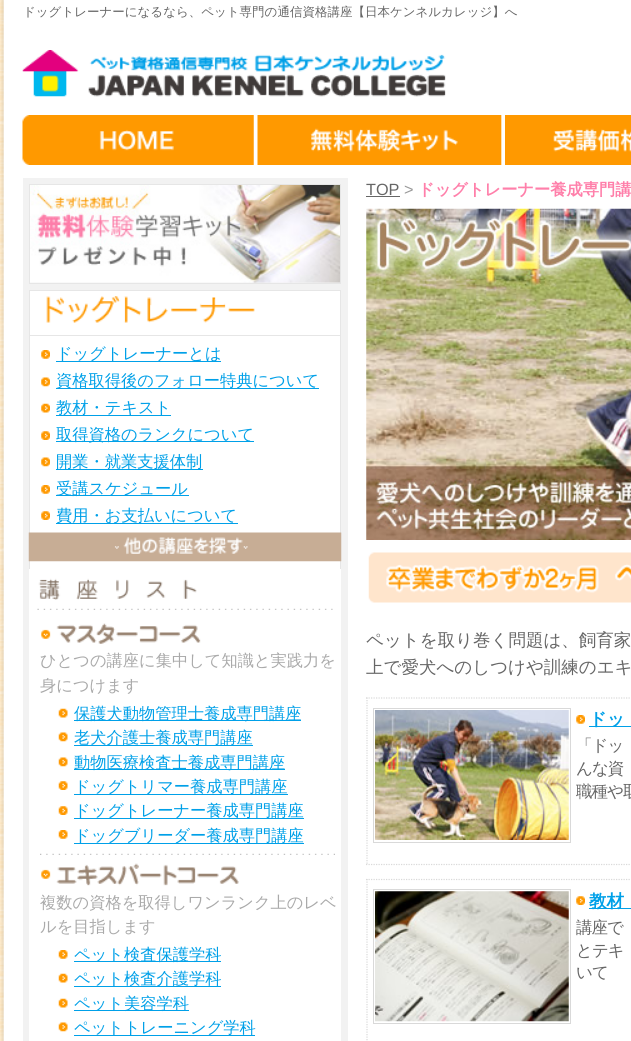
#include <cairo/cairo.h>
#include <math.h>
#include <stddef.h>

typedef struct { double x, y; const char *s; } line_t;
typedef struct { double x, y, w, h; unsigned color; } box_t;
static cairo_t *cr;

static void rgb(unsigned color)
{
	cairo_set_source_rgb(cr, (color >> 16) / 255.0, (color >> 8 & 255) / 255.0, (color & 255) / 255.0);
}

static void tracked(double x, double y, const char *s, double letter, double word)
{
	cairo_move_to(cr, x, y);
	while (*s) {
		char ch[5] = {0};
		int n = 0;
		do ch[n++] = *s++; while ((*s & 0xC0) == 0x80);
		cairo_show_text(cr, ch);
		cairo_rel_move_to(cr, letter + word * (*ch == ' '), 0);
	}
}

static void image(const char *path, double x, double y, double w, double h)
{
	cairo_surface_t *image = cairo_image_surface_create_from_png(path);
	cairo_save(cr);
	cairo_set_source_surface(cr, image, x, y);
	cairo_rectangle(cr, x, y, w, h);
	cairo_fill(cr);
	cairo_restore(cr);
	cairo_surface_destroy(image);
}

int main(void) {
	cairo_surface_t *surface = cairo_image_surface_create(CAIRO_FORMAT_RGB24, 631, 1041);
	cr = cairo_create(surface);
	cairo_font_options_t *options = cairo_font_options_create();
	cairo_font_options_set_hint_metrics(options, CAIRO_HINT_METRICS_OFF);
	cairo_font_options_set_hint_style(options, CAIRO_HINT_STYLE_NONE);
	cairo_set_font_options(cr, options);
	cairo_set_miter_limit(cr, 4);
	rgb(0xffffff);
	cairo_paint(cr);
	image("img/1.png", 0, 0, 4, 1041);
	image("img/2.png", 1, 0, 630, 1041);
	image("img/3.png", 22, 50, 424, 47);
	image("img/4.png", 22, 115, 232, 50);
	image("img/5.png", 257, 115, 245, 50);
	image("img/6.png", 505, 115, 126, 50);
	rgb(0xf2f2f2);
	cairo_rectangle(cr, 23, 178, 325, 863);
	cairo_fill(cr);
	cairo_rectangle(cr, 29.5, 184.5, 311, 99);
	rgb(0xe6e6e6);
	cairo_set_line_width(cr, 1);
	cairo_stroke(cr);
	image("img/7.png", 30, 185, 310, 98);
	{
		static const box_t items[] = {
			{30, 291, 310, 278, 0xffffff},
			{29, 290, 312, 1, 0xe6e6e6},
			{340, 290, 1, 279, 0xe6e6e6},
			{29, 290, 1, 279, 0xe6e6e6},
			{30, 335, 310, 1, 0xe6e6e6},
		};
		for (size_t i = 0; i < sizeof items / sizeof *items; i++) {
			rgb(items[i].color);
			cairo_rectangle(cr, items[i].x, items[i].y, items[i].w, items[i].h);
			cairo_fill(cr);
		}
	}
	image("img/8.png", 46, 296, 209, 27);
	image("img/9.png", 41, 350, 9, 9);
	rgb(0x00a0e8);
	cairo_rectangle(cr, 56, 361, 165, 1);
	cairo_fill(cr);
	image("img/10.png", 41, 377, 9, 10);
	cairo_rectangle(cr, 56, 388, 263, 1);
	cairo_fill(cr);
	image("img/11.png", 41, 403, 9, 10);
	cairo_rectangle(cr, 56, 415, 115, 1);
	cairo_fill(cr);
	image("img/12.png", 41, 431, 9, 9);
	cairo_rectangle(cr, 56, 441, 198, 1);
	cairo_fill(cr);
	image("img/10.png", 41, 457, 9, 10);
	cairo_rectangle(cr, 56, 469, 147, 1);
	cairo_fill(cr);
	image("img/9.png", 41, 485, 9, 9);
	cairo_rectangle(cr, 56, 495, 133, 1);
	cairo_fill(cr);
	image("img/12.png", 41, 511, 9, 9);
	cairo_rectangle(cr, 56, 523, 182, 1);
	cairo_fill(cr);
	image("img/13.png", 28, 532, 314, 30);
	rgb(0xffffff);
	cairo_rectangle(cr, 29, 569, 312, 472);
	cairo_fill(cr);
	image("img/14.png", 37, 608, 296, 2);
	image("img/15.png", 38, 578, 159, 22);
	image("img/16.png", 40, 853, 295, 2);
	image("img/17.png", 41, 623, 160, 21);
	image("img/18.png", 58, 708, 10, 10);
	rgb(0x00a0e8);
	cairo_rectangle(cr, 74, 720, 227, 1);
	cairo_fill(cr);
	image("img/19.png", 58, 732, 10, 10);
	cairo_rectangle(cr, 74, 745, 179, 1);
	cairo_fill(cr);
	image("img/19.png", 58, 757, 10, 10);
	cairo_rectangle(cr, 74, 769, 211, 1);
	cairo_fill(cr);
	image("img/20.png", 58, 781, 10, 9);
	cairo_rectangle(cr, 74, 794, 214, 1);
	cairo_fill(cr);
	image("img/21.png", 58, 806, 10, 9);
	cairo_rectangle(cr, 74, 818, 230, 1);
	cairo_fill(cr);
	image("img/22.png", 58, 830, 10, 9);
	cairo_rectangle(cr, 74, 843, 230, 1);
	cairo_fill(cr);
	image("img/23.png", 41, 863, 198, 23);
	image("img/22.png", 58, 950, 10, 9);
	cairo_rectangle(cr, 74, 961, 147, 1);
	cairo_fill(cr);
	image("img/18.png", 58, 973, 10, 10);
	cairo_rectangle(cr, 74, 986, 147, 1);
	cairo_fill(cr);
	image("img/18.png", 58, 998, 10, 10);
	cairo_rectangle(cr, 74, 1010, 115, 1);
	cairo_fill(cr);
	image("img/24.png", 58, 1022, 10, 10);
	cairo_rectangle(cr, 74, 1035, 181, 1);
	cairo_fill(cr);
	rgb(0x666666);
	cairo_rectangle(cr, 366, 196, 34, 1);
	cairo_fill(cr);
	image("img/25.png", 366, 208, 265, 332);
	image("img/26.png", 368, 552, 263, 51);
	cairo_new_path(cr);
	cairo_move_to(cr, 366, 698);
	cairo_line_to(cr, 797.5, 698);
	rgb(0xd9d9d9);
	cairo_set_line_width(cr, 1.2);
	cairo_set_dash(cr, (double[]){1.25, 1.25}, 2, 0);
	cairo_stroke(cr);
	cairo_new_path(cr);
	cairo_move_to(cr, 366, 864.5);
	cairo_line_to(cr, 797.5, 864.5);
	cairo_stroke(cr);
	cairo_new_path(cr);
	cairo_move_to(cr, 367, 697.5);
	cairo_line_to(cr, 367, 865);
	cairo_stroke(cr);
	cairo_rectangle(cr, 373.5, 708.5, 197, 134);
	cairo_set_line_width(cr, 1);
	cairo_set_dash(cr, NULL, 0, 0);
	cairo_stroke(cr);
	image("img/27.png", 375, 710, 194, 130);
	image("img/9.png", 576, 715, 9, 9);
	rgb(0x00a0e8);
	cairo_rectangle(cr, 589, 726, 42, 1);
	cairo_fill(cr);
	cairo_new_path(cr);
	cairo_move_to(cr, 366, 879.5);
	cairo_line_to(cr, 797.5, 879.5);
	rgb(0xd9d9d9);
	cairo_set_line_width(cr, 1.2);
	cairo_set_dash(cr, (double[]){1.25, 1.25}, 2, 0);
	cairo_stroke(cr);
	cairo_new_path(cr);
	cairo_move_to(cr, 367, 879);
	cairo_line_to(cr, 367, 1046);
	cairo_stroke(cr);
	cairo_rectangle(cr, 373.5, 889.5, 197, 134);
	cairo_set_line_width(cr, 1);
	cairo_set_dash(cr, NULL, 0, 0);
	cairo_stroke(cr);
	image("img/28.png", 375, 891, 194, 131);
	image("img/12.png", 576, 896, 9, 9);
	rgb(0x00a0e8);
	cairo_rectangle(cr, 589, 908, 42, 1);
	cairo_fill(cr);
	cairo_select_font_face(cr, "WenQuanYi Zen Hei Medium", CAIRO_FONT_SLANT_NORMAL, CAIRO_FONT_WEIGHT_NORMAL);
	cairo_set_font_size(cr, 12.5);
	rgb(0x666666);
	cairo_move_to(cr, 23, 16);
	cairo_show_text(cr, "ドッグトレーナーになるなら、ペット専門の通信資格講座【日本ケンネルカレッジ】へ");
	cairo_set_font_size(cr, 16.25);
	rgb(0x00a0e8);
	{
		static const line_t items[] = {
			{56, 359, "ドッグトレーナーとは"},
			{56, 386, "資格取得後のフォロー特典について"},
			{56, 413, "教材・テキスト"},
			{56, 440, "取得資格のランクについて"},
			{56, 467, "開業・就業支援体制"},
			{56, 494, "受講スケジュール"},
			{56, 521, "費用・お支払いについて"},
		};
		for (size_t i = 0; i < sizeof items / sizeof *items; i++) {
			cairo_move_to(cr, items[i].x, items[i].y);
			cairo_show_text(cr, items[i].s);
		}
	}
	rgb(0xaaaaaa);
	cairo_move_to(cr, 40, 666);
	cairo_show_text(cr, "ひとつの講座に集中して知識と実践力を");
	cairo_move_to(cr, 40, 691);
	cairo_show_text(cr, "身につけます");
	rgb(0x00a0e8);
	{
		static const line_t items[] = {
			{74, 719, "保護犬動物管理士養成専門講座"},
			{74, 743, "老犬介護士養成専門講座"},
			{74, 768, "動物医療検査士養成専門講座"},
			{74, 792, "ドッグトリマー養成専門講座"},
			{74, 816, "ドッグトレーナー養成専門講座"},
			{74, 841, "ドッグブリーダー養成専門講座"},
		};
		for (size_t i = 0; i < sizeof items / sizeof *items; i++) {
			cairo_move_to(cr, items[i].x, items[i].y);
			cairo_show_text(cr, items[i].s);
		}
	}
	rgb(0xaaaaaa);
	cairo_move_to(cr, 40, 908);
	cairo_show_text(cr, "複数の資格を取得しワンランク上のレベ");
	cairo_move_to(cr, 40, 932);
	cairo_show_text(cr, "ルを目指します");
	rgb(0x00a0e8);
	{
		static const line_t items[] = {
			{74, 960, "ペット検査保護学科"},
			{74, 984, "ペット検査介護学科"},
			{74, 1009, "ペット美容学科"},
			{74, 1033, "ペットトレーニング学科"},
		};
		for (size_t i = 0; i < sizeof items / sizeof *items; i++) {
			cairo_move_to(cr, items[i].x, items[i].y);
			cairo_show_text(cr, items[i].s);
		}
	}
	cairo_select_font_face(cr, "Liberation Sans", CAIRO_FONT_SLANT_NORMAL, CAIRO_FONT_WEIGHT_NORMAL);
	rgb(0x666666);
	cairo_move_to(cr, 366, 195);
	cairo_show_text(cr, "TOP");
	rgb(0x999999);
	cairo_move_to(cr, 404, 195);
	cairo_show_text(cr, ">");
	cairo_select_font_face(cr, "WenQuanYi Zen Hei", CAIRO_FONT_SLANT_NORMAL, CAIRO_FONT_WEIGHT_BOLD);
	rgb(0xff7faa);
	cairo_move_to(cr, 418, 195);
	cairo_show_text(cr, "ドッグトレーナー養成専門講");
	cairo_select_font_face(cr, "WenQuanYi Zen Hei Medium", CAIRO_FONT_SLANT_NORMAL, CAIRO_FONT_WEIGHT_NORMAL);
	cairo_set_font_size(cr, 17.5);
	rgb(0x666666);
	cairo_move_to(cr, 366, 646);
	cairo_show_text(cr, "ペットを取り巻く問題は、飼育家");
	cairo_move_to(cr, 366, 673);
	cairo_show_text(cr, "上で愛犬へのしつけや訓練のエキ");
	cairo_select_font_face(cr, "WenQuanYi Zen Hei", CAIRO_FONT_SLANT_NORMAL, CAIRO_FONT_WEIGHT_BOLD);
	rgb(0x00a0e8);
	cairo_move_to(cr, 589, 725);
	cairo_show_text(cr, "ドッ");
	cairo_select_font_face(cr, "WenQuanYi Zen Hei Medium", CAIRO_FONT_SLANT_NORMAL, CAIRO_FONT_WEIGHT_NORMAL);
	cairo_set_font_size(cr, 16.5);
	rgb(0x666666);
	{
		static const line_t items[] = {
			{576, 751, "「ドッ"},
			{576, 774, "んな資"},
			{576, 797, "職種や取"},
		};
		for (size_t i = 0; i < sizeof items / sizeof *items; i++) {
			tracked(items[i].x, items[i].y, items[i].s, -1, 0);
		}
	}
	cairo_select_font_face(cr, "WenQuanYi Zen Hei", CAIRO_FONT_SLANT_NORMAL, CAIRO_FONT_WEIGHT_BOLD);
	cairo_set_font_size(cr, 17.5);
	rgb(0x00a0e8);
	cairo_move_to(cr, 589, 907);
	cairo_show_text(cr, "教材");
	cairo_select_font_face(cr, "WenQuanYi Zen Hei Medium", CAIRO_FONT_SLANT_NORMAL, CAIRO_FONT_WEIGHT_NORMAL);
	cairo_set_font_size(cr, 16.5);
	rgb(0x666666);
	{
		static const line_t items[] = {
			{576, 933, "講座で"},
			{576, 956, "とテキ"},
			{576, 978, "いて"},
		};
		for (size_t i = 0; i < sizeof items / sizeof *items; i++) {
			tracked(items[i].x, items[i].y, items[i].s, -1, 0);
		}
	}
	cairo_surface_write_to_png(surface, "page.png");
	cairo_font_options_destroy(options);
	cairo_destroy(cr);
	cairo_surface_destroy(surface);
	return 0;
}
